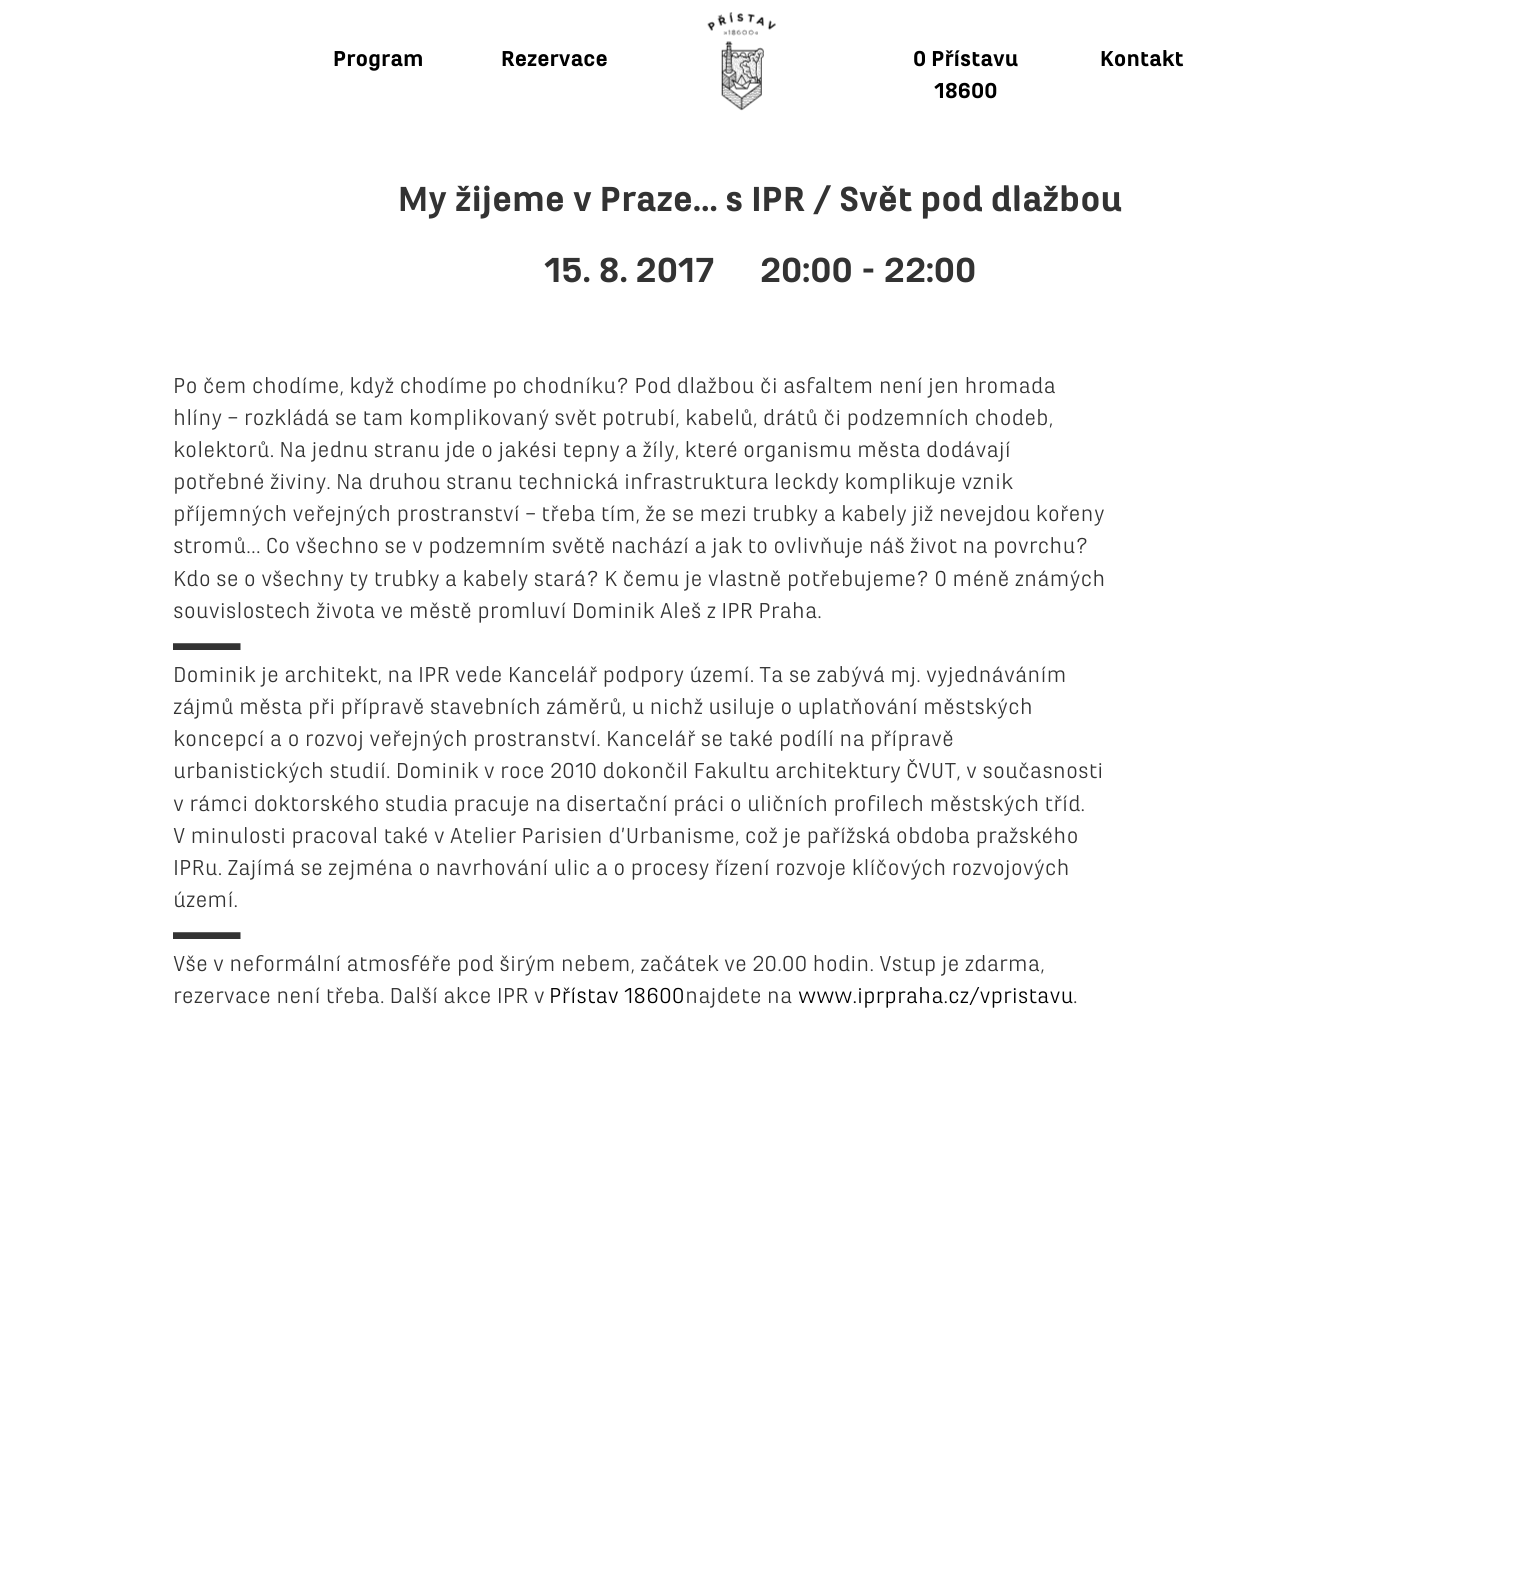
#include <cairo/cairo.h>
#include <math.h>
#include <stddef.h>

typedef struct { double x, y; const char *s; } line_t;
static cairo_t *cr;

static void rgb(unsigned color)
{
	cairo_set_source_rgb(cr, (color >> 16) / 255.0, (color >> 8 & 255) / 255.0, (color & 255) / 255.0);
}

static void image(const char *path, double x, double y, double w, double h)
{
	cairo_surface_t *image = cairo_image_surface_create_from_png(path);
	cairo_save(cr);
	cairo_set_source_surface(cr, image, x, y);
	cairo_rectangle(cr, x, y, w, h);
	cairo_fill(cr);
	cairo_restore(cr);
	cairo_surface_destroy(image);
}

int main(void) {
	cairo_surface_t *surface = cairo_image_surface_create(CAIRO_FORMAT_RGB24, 1519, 1581);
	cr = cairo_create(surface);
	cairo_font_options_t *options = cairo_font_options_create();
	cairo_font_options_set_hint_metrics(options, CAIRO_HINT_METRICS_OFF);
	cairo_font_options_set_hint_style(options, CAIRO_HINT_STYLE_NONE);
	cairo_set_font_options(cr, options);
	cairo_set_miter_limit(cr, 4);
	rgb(0xffffff);
	cairo_paint(cr);
	image("img/1.png", 707, 12, 69, 99);
	cairo_select_font_face(cr, "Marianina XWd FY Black", CAIRO_FONT_SLANT_NORMAL, CAIRO_FONT_WEIGHT_NORMAL);
	cairo_set_font_size(cr, 22.5);
	rgb(0x000000);
	{
		static const line_t items[] = {
			{333, 66, "Program"},
			{501, 66, "Rezervace"},
			{913, 66, "O Přístavu"},
			{934, 98, "18600"},
			{1100, 66, "Kontakt"},
		};
		for (size_t i = 0; i < sizeof items / sizeof *items; i++) {
			cairo_move_to(cr, items[i].x, items[i].y);
			cairo_show_text(cr, items[i].s);
		}
	}
	cairo_set_font_size(cr, 36.25);
	rgb(0x333333);
	{
		static const line_t items[] = {
			{398, 211, "My žijeme v Praze… s IPR / Svět pod dlažbou"},
			{544, 282, "15. 8. 2017"},
			{760, 282, "20:00 - 22:00"},
		};
		for (size_t i = 0; i < sizeof items / sizeof *items; i++) {
			cairo_move_to(cr, items[i].x, items[i].y);
			cairo_show_text(cr, items[i].s);
		}
	}
	cairo_select_font_face(cr, "Marianina XWd FY", CAIRO_FONT_SLANT_NORMAL, CAIRO_FONT_WEIGHT_NORMAL);
	cairo_set_font_size(cr, 22.5);
	{
		static const line_t items[] = {
			{173, 393, "Po čem chodíme, když chodíme po chodníku? Pod dlažbou či asfaltem není jen hromada"},
			{173, 425, "hlíny – rozkládá se tam komplikovaný svět potrubí, kabelů, drátů či podzemních chodeb,"},
			{173, 457, "kolektorů. Na jednu stranu jde o jakési tepny a žíly, které organismu města dodávají"},
			{173, 489, "potřebné živiny. Na druhou stranu technická infrastruktura leckdy komplikuje vznik"},
			{173, 521, "příjemných veřejných prostranství – třeba tím, že se mezi trubky a kabely již nevejdou kořeny"},
			{173, 553, "stromů… Co všechno se v podzemním světě nachází a jak to ovlivňuje náš život na povrchu?"},
			{173, 586, "Kdo se o všechny ty trubky a kabely stará? K čemu je vlastně potřebujeme? O méně známých"},
			{173, 618, "souvislostech života ve městě promluví Dominik Aleš z IPR Praha."},
		};
		for (size_t i = 0; i < sizeof items / sizeof *items; i++) {
			cairo_move_to(cr, items[i].x, items[i].y);
			cairo_show_text(cr, items[i].s);
		}
	}
	cairo_select_font_face(cr, "Liberation Sans", CAIRO_FONT_SLANT_NORMAL, CAIRO_FONT_WEIGHT_NORMAL);
	cairo_move_to(cr, 173, 650);
	cairo_show_text(cr, "▬▬▬");
	cairo_select_font_face(cr, "Marianina XWd FY", CAIRO_FONT_SLANT_NORMAL, CAIRO_FONT_WEIGHT_NORMAL);
	{
		static const line_t items[] = {
			{173, 682, "Dominik je architekt, na IPR vede Kancelář podpory území. Ta se zabývá mj. vyjednáváním"},
			{173, 714, "zájmů města při přípravě stavebních záměrů, u nichž usiluje o uplatňování městských"},
			{173, 746, "koncepcí a o rozvoj veřejných prostranství. Kancelář se také podílí na přípravě"},
			{173, 778, "urbanistických studií. Dominik v roce 2010 dokončil Fakultu architektury ČVUT, v současnosti"},
			{173, 811, "v rámci doktorského studia pracuje na disertační práci o uličních profilech městských tříd."},
			{173, 843, "V minulosti pracoval také v Atelier Parisien d’Urbanisme, což je pařížská obdoba pražského"},
			{173, 875, "IPRu. Zajímá se zejména o navrhování ulic a o procesy řízení rozvoje klíčových rozvojových"},
			{173, 907, "území."},
		};
		for (size_t i = 0; i < sizeof items / sizeof *items; i++) {
			cairo_move_to(cr, items[i].x, items[i].y);
			cairo_show_text(cr, items[i].s);
		}
	}
	cairo_select_font_face(cr, "Liberation Sans", CAIRO_FONT_SLANT_NORMAL, CAIRO_FONT_WEIGHT_NORMAL);
	cairo_move_to(cr, 173, 939);
	cairo_show_text(cr, "▬▬▬");
	cairo_select_font_face(cr, "Marianina XWd FY", CAIRO_FONT_SLANT_NORMAL, CAIRO_FONT_WEIGHT_NORMAL);
	cairo_move_to(cr, 173, 971);
	cairo_show_text(cr, "Vše v neformální atmosféře pod širým nebem, začátek ve 20.00 hodin. Vstup je zdarma,");
	cairo_move_to(cr, 173, 1003);
	cairo_show_text(cr, "rezervace není třeba. Další akce IPR v");
	rgb(0x000000);
	cairo_move_to(cr, 549, 1003);
	cairo_show_text(cr, "Přístav 18600");
	rgb(0x333333);
	cairo_move_to(cr, 685, 1003);
	cairo_show_text(cr, "najdete na");
	rgb(0x000000);
	cairo_move_to(cr, 798, 1003);
	cairo_show_text(cr, "www.iprpraha.cz/vpristavu");
	rgb(0x333333);
	cairo_move_to(cr, 1073, 1003);
	cairo_show_text(cr, ".");
	cairo_surface_write_to_png(surface, "page.png");
	cairo_font_options_destroy(options);
	cairo_destroy(cr);
	cairo_surface_destroy(surface);
	return 0;
}
